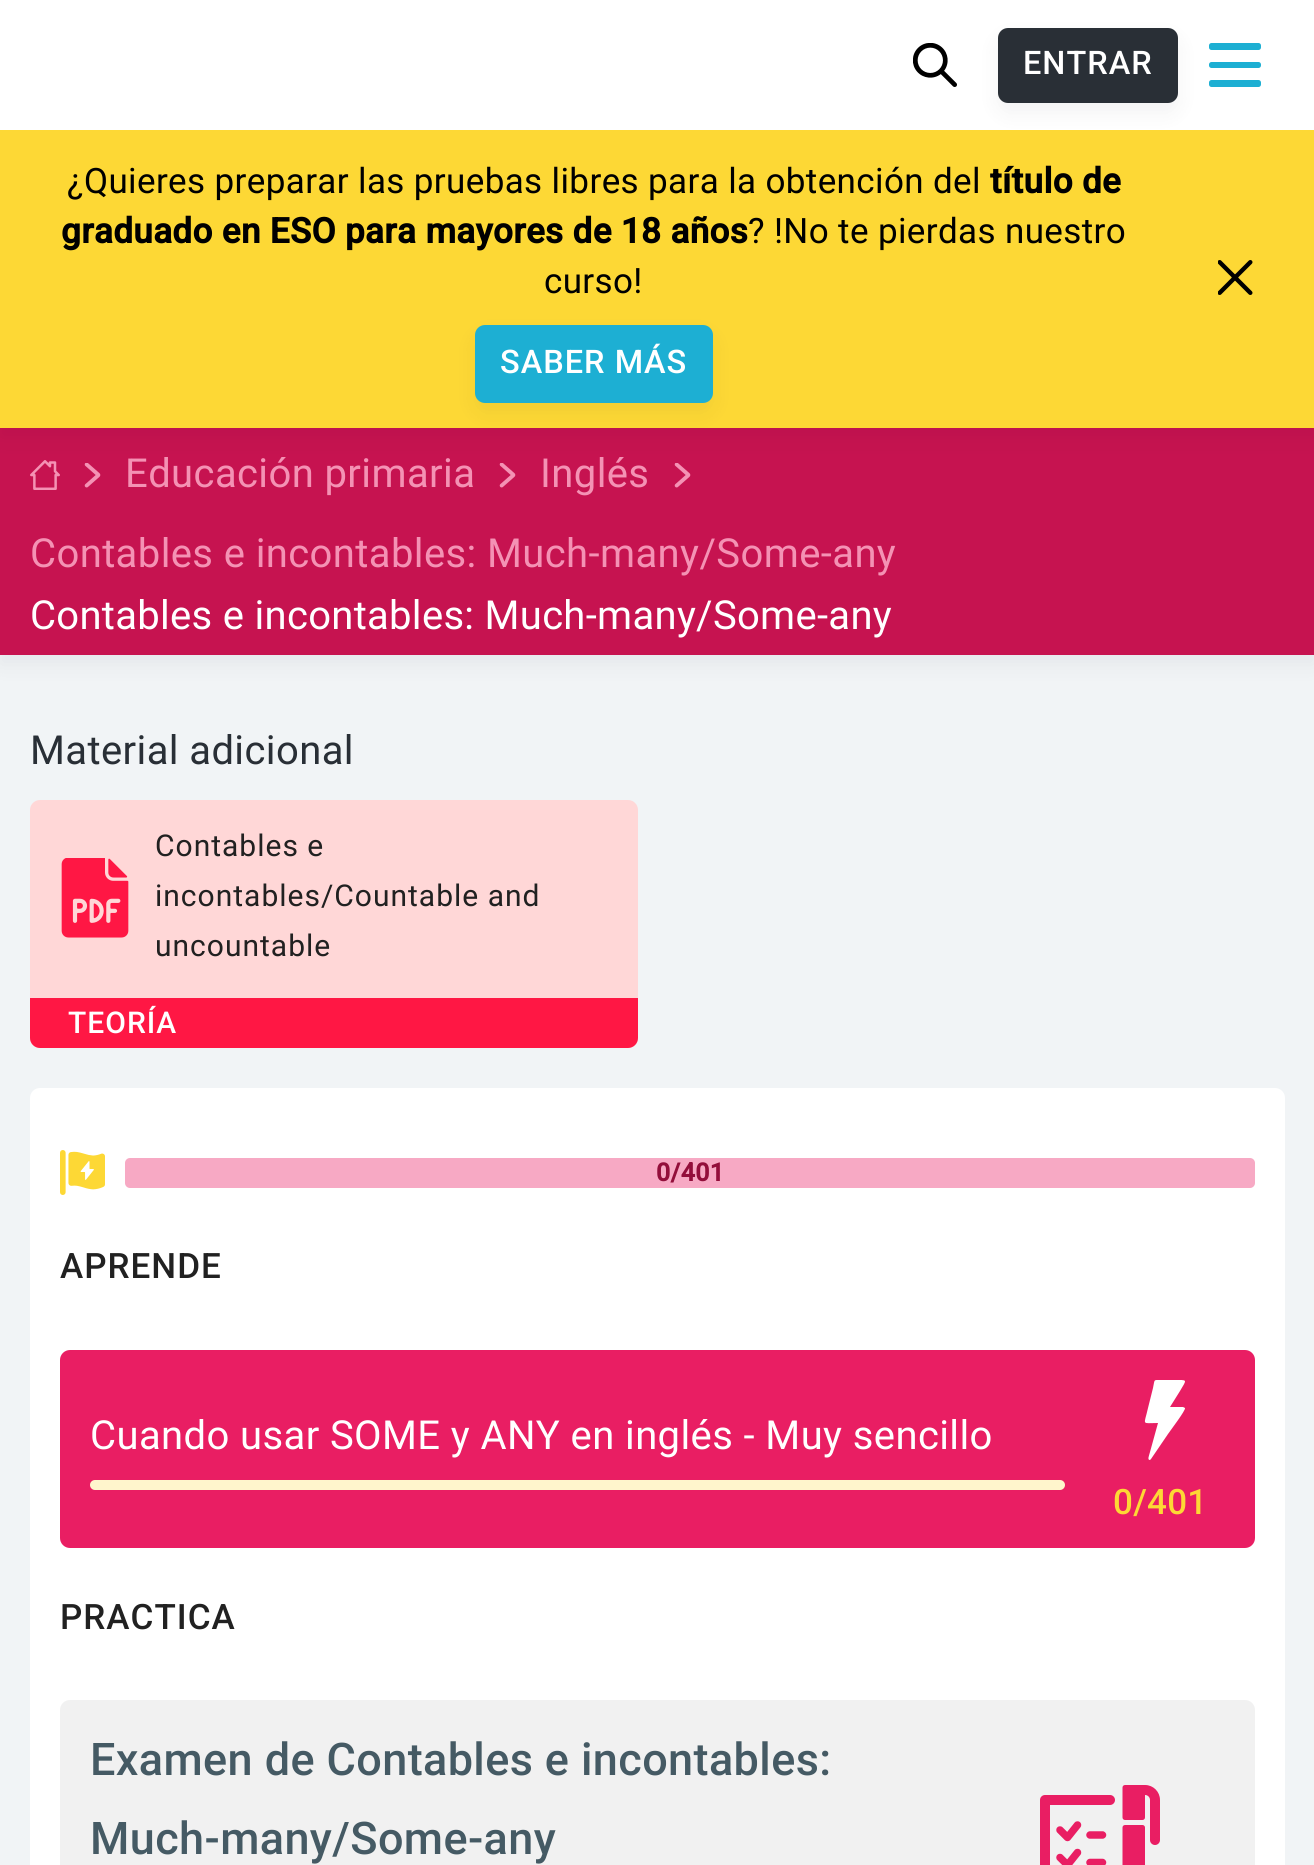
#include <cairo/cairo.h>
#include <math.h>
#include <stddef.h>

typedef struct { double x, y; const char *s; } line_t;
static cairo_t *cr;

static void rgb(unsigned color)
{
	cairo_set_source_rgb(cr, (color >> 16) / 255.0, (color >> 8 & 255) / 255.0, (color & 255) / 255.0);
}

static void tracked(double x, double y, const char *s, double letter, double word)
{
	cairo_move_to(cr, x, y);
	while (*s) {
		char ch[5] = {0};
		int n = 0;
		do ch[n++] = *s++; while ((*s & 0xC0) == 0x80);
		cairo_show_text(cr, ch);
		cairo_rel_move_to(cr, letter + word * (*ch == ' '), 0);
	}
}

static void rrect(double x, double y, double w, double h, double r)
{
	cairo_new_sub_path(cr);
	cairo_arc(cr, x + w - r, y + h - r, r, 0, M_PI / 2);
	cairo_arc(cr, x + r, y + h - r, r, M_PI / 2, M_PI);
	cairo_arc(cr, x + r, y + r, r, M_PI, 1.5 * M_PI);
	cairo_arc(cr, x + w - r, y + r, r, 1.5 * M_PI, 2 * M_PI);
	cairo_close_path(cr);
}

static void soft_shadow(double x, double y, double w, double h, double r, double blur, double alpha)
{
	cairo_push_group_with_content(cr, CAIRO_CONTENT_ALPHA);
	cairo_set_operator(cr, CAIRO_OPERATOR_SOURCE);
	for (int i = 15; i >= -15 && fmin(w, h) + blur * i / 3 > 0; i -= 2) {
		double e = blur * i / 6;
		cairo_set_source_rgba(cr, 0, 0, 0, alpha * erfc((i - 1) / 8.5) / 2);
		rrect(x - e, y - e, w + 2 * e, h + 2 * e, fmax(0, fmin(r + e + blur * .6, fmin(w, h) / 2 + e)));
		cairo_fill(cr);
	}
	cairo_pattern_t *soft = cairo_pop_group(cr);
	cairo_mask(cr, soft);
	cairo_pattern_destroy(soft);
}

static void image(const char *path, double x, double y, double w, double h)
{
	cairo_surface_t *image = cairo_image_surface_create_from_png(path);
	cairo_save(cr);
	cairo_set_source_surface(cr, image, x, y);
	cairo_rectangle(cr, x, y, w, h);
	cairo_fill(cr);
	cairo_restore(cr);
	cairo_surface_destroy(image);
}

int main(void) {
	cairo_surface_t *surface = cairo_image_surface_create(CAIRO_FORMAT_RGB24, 1314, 1865);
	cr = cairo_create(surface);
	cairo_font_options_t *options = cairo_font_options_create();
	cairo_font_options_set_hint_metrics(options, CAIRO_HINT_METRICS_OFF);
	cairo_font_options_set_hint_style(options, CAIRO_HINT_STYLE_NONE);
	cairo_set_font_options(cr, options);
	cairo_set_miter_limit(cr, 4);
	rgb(0xf1f4f6);
	cairo_paint(cr);
	rgb(0x040914);
	soft_shadow(0, 438, 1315, 227, 0, 10.5, 0.05);
	rgb(0xc61350);
	cairo_rectangle(cr, 0, 428, 1314, 227);
	cairo_fill(cr);
	image("img/3.png", 30, 460, 30, 30);
	image("img/4.png", 84, 463, 17, 25);
	image("img/4.png", 499, 463, 17, 25);
	image("img/4.png", 674, 463, 17, 25);
	rgb(0x040914);
	soft_shadow(0, 10, 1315, 428, 0, 10.5, 0.05);
	rgb(0xffffff);
	cairo_rectangle(cr, 0, 0, 1314, 130);
	cairo_fill(cr);
	image("img/1.png", 913, 43, 44, 44);
	rgb(0x040914);
	soft_shadow(998, 38, 180, 75, 10, 10.5, 0.05);
	rgb(0x292f36);
	rrect(998, 28, 180, 75, 10);
	cairo_fill(cr);
	rgb(0x1dafd3);
	rrect(1209, 43, 52, 7, 2.5);
	cairo_fill(cr);
	rrect(1209, 62, 52, 6, 2.5);
	cairo_fill(cr);
	rrect(1209, 80, 52, 7, 2.5);
	cairo_fill(cr);
	rgb(0xfdd835);
	cairo_rectangle(cr, 0, 130, 1314, 298);
	cairo_fill(cr);
	rgb(0x040914);
	soft_shadow(475, 335, 238, 78, 10, 10.5, 0.05);
	rgb(0x1dafd3);
	rrect(475, 325, 238, 78, 10);
	cairo_fill(cr);
	image("img/2.png", 1218, 260, 35, 35);
	rgb(0xffd7d7);
	rrect(30, 800, 608, 248, 10);
	cairo_fill(cr);
	image("img/5.png", 61, 858, 68, 80);
	rgb(0xff1744);
	cairo_new_path(cr);
	cairo_move_to(cr, 30, 998);
	cairo_line_to(cr, 638, 998);
	cairo_line_to(cr, 638, 1038);
	cairo_curve_to(cr, 638, 1043.5, 633.5, 1048, 628, 1048);
	cairo_line_to(cr, 40, 1048);
	cairo_curve_to(cr, 34.5, 1048, 30, 1043.5, 30, 1038);
	cairo_close_path(cr);
	cairo_fill(cr);
	rgb(0xffffff);
	rrect(30, 1088, 1255, 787, 10);
	cairo_fill(cr);
	image("img/6.png", 60, 1150, 45, 45);
	rgb(0xf7a9c4);
	rrect(125, 1158, 1130, 30, 5);
	cairo_fill(cr);
	rgb(0xe91e63);
	rrect(60, 1350, 1195, 198, 10);
	cairo_fill(cr);
	rgb(0xfff5cc);
	rrect(90, 1480, 975, 10, 5);
	cairo_fill(cr);
	rgb(0xffffff);
	cairo_new_path(cr);
	cairo_move_to(cr, 1183, 1407);
	cairo_line_to(cr, 1170, 1407);
	cairo_line_to(cr, 1180, 1391);
	cairo_curve_to(cr, 1187, 1379, 1188, 1380, 1174, 1380);
	cairo_line_to(cr, 1161, 1380);
	cairo_curve_to(cr, 1153, 1380, 1155, 1379, 1153, 1388);
	cairo_line_to(cr, 1148, 1408);
	cairo_curve_to(cr, 1144, 1426, 1141, 1423, 1158, 1423);
	cairo_line_to(cr, 1150, 1452);
	cairo_curve_to(cr, 1149, 1456, 1147, 1460, 1150, 1460);
	cairo_line_to(cr, 1151, 1459);
	cairo_line_to(cr, 1168, 1434);
	cairo_curve_to(cr, 1170, 1431, 1186, 1410, 1185, 1408);
	cairo_close_path(cr);
	cairo_fill(cr);
	rgb(0xf1f1f1);
	rrect(60, 1700, 1195, 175, 10);
	cairo_fill(cr);
	image("img/7.png", 1040, 1785, 120, 80);
	cairo_select_font_face(cr, "Roboto Medium", CAIRO_FONT_SLANT_NORMAL, CAIRO_FONT_WEIGHT_NORMAL);
	cairo_set_font_size(cr, 32.5);
	rgb(0xffffff);
	tracked(1023, 74, "ENTRAR", 1, 0);
	cairo_select_font_face(cr, "Roboto", CAIRO_FONT_SLANT_NORMAL, CAIRO_FONT_WEIGHT_NORMAL);
	cairo_set_font_size(cr, 35);
	rgb(0x000000);
	tracked(67, 193, "¿Quieres preparar las pruebas libres para la obtención del", 0.37, 0);
	cairo_select_font_face(cr, "Roboto", CAIRO_FONT_SLANT_NORMAL, CAIRO_FONT_WEIGHT_BOLD);
	tracked(990, 193, "título de", 0.37, 0);
	tracked(61, 243, "graduado en ESO para mayores de 18 años", 0.37, 0);
	cairo_select_font_face(cr, "Roboto", CAIRO_FONT_SLANT_NORMAL, CAIRO_FONT_WEIGHT_NORMAL);
	tracked(748, 243, "? !No te pierdas nuestro", 0.37, 0);
	tracked(544, 293, "curso!", 0.37, 0);
	cairo_select_font_face(cr, "Roboto Medium", CAIRO_FONT_SLANT_NORMAL, CAIRO_FONT_WEIGHT_NORMAL);
	cairo_set_font_size(cr, 32.5);
	rgb(0xffffff);
	tracked(500, 373, "SABER MÁS", 1, 0);
	cairo_select_font_face(cr, "Roboto", CAIRO_FONT_SLANT_NORMAL, CAIRO_FONT_WEIGHT_NORMAL);
	cairo_set_font_size(cr, 40);
	rgb(0xf492b4);
	{
		static const line_t items[] = {
			{125, 487, "Educación primaria"},
			{540, 487, "Inglés"},
			{30, 567, "Contables e incontables: Much-many/Some-any"},
		};
		for (size_t i = 0; i < sizeof items / sizeof *items; i++) {
			tracked(items[i].x, items[i].y, items[i].s, 0.4, 0);
		}
	}
	rgb(0xffffff);
	tracked(30, 629, "Contables e incontables: Much-many/Some-any", 0.3, 0);
	rgb(0x292f36);
	tracked(30, 764, "Material adicional", 0.4, 0);
	cairo_set_font_size(cr, 30);
	rgb(0x212121);
	{
		static const line_t items[] = {
			{155, 856, "Contables e"},
			{155, 906, "incontables/Countable and"},
			{155, 956, "uncountable"},
		};
		for (size_t i = 0; i < sizeof items / sizeof *items; i++) {
			tracked(items[i].x, items[i].y, items[i].s, 1, 0);
		}
	}
	cairo_select_font_face(cr, "Roboto Medium", CAIRO_FONT_SLANT_NORMAL, CAIRO_FONT_WEIGHT_NORMAL);
	rgb(0xffffff);
	tracked(68, 1033, "TEORÍA", 1, 0);
	cairo_select_font_face(cr, "Roboto", CAIRO_FONT_SLANT_NORMAL, CAIRO_FONT_WEIGHT_BOLD);
	cairo_set_font_size(cr, 25);
	rgb(0x930e3b);
	tracked(656, 1181, "0/401", 0.37, 0);
	cairo_select_font_face(cr, "Roboto Medium", CAIRO_FONT_SLANT_NORMAL, CAIRO_FONT_WEIGHT_NORMAL);
	cairo_set_font_size(cr, 35);
	rgb(0x212121);
	tracked(60, 1278, "APRENDE", 1, 0);
	cairo_select_font_face(cr, "Roboto", CAIRO_FONT_SLANT_NORMAL, CAIRO_FONT_WEIGHT_NORMAL);
	cairo_set_font_size(cr, 40);
	rgb(0xffffff);
	tracked(90, 1449, "Cuando usar SOME y ANY en inglés - Muy sencillo", 0.4, 0);
	cairo_select_font_face(cr, "Roboto Medium", CAIRO_FONT_SLANT_NORMAL, CAIRO_FONT_WEIGHT_NORMAL);
	cairo_set_font_size(cr, 35);
	rgb(0xfdd835);
	tracked(1113, 1514, "0/401", 0.25, 0);
	rgb(0x212121);
	tracked(60, 1629, "PRACTICA", 1, 0);
	cairo_set_font_size(cr, 45);
	rgb(0x455a64);
	tracked(90, 1775, "Examen de Contables e incontables:", 0.4, 0);
	tracked(90, 1854, "Much-many/Some-any", 0.4, 0);
	cairo_surface_write_to_png(surface, "page.png");
	cairo_font_options_destroy(options);
	cairo_destroy(cr);
	cairo_surface_destroy(surface);
	return 0;
}
